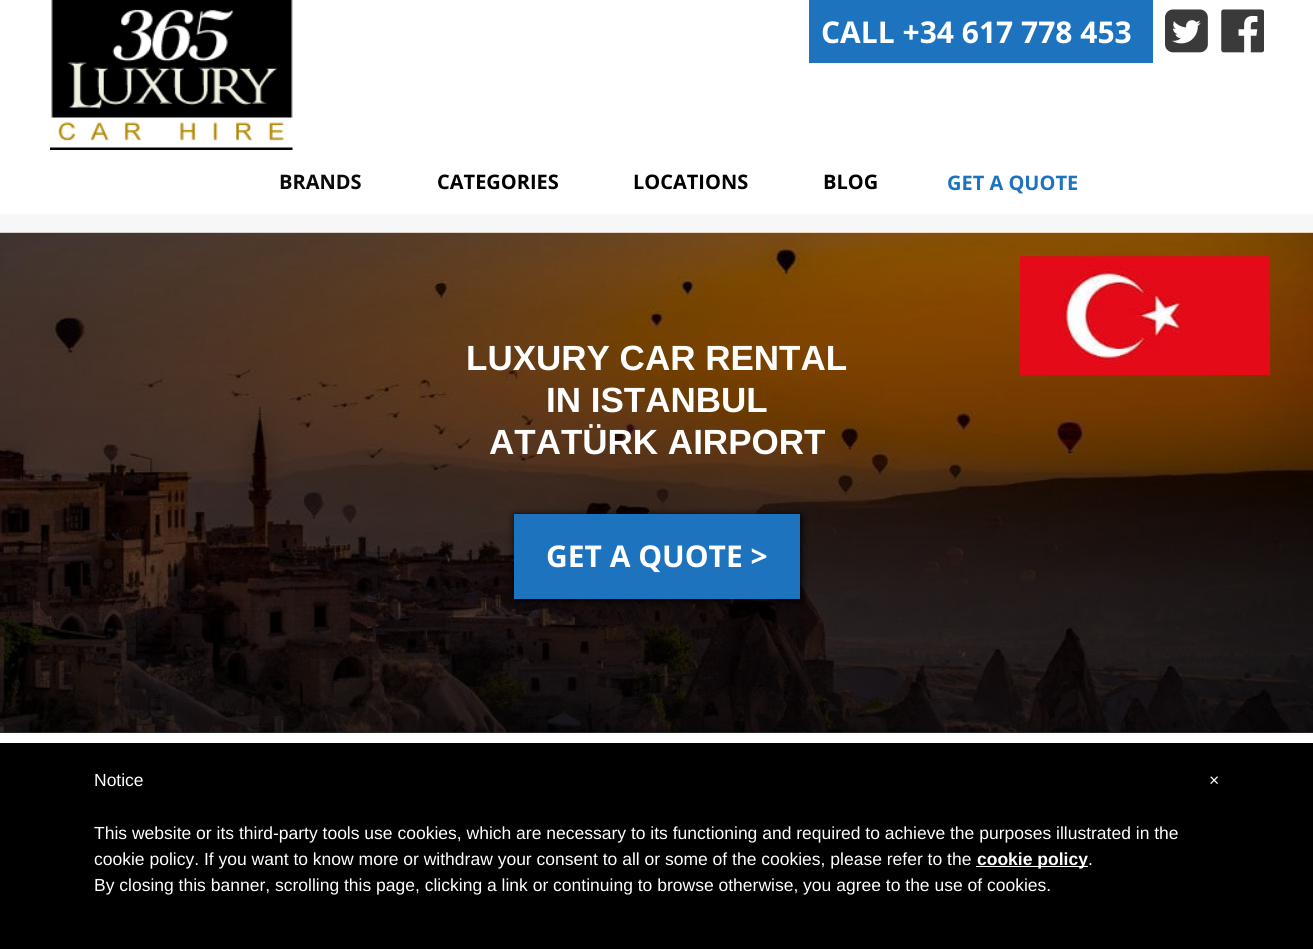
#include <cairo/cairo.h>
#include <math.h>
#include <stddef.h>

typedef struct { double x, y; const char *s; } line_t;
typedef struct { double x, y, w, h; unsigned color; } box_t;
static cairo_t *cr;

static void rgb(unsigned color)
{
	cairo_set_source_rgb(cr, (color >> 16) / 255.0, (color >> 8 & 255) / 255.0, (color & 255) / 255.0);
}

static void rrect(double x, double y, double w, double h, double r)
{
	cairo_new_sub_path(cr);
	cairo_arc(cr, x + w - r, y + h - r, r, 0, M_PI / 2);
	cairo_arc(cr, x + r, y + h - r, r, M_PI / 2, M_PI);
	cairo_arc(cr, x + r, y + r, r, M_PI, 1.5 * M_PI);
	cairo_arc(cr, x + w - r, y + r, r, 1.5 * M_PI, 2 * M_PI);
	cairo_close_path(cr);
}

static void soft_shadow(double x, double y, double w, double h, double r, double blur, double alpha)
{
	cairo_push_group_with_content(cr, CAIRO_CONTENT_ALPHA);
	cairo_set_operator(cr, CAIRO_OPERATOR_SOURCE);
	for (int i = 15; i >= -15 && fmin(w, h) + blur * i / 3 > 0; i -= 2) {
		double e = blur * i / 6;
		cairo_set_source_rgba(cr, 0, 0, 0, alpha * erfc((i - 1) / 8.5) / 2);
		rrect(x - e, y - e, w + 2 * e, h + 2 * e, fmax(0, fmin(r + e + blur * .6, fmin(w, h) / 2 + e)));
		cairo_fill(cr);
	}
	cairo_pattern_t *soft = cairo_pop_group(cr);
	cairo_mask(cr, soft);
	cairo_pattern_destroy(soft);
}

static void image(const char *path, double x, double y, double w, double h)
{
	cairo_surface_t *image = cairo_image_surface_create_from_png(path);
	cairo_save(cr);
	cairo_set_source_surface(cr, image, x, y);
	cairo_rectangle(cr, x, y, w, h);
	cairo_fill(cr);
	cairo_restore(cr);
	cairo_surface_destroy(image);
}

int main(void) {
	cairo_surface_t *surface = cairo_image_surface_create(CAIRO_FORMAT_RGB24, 1313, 949);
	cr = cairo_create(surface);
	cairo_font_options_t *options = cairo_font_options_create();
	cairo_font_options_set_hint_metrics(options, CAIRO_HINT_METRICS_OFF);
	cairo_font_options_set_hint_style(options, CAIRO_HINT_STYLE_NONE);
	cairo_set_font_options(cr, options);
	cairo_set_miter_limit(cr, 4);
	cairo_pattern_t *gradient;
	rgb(0xf7f7f7);
	cairo_paint(cr);
	rgb(0xffffff);
	cairo_rectangle(cr, 0, 0, 1313, 214);
	cairo_fill(cr);
	image("img/1.png", 50, 0, 243, 150);
	rgb(0x1e73be);
	cairo_rectangle(cr, 809, 0, 344, 63);
	cairo_fill(cr);
	image("img/2.png", 1165, 9, 43, 44);
	image("img/3.png", 1221, 9, 43, 44);
	image("img/4.png", 0, 232, 1313, 501);
	gradient = cairo_pattern_create_linear(657, 232, 657, 943);
	cairo_pattern_add_color_stop_rgba(gradient, 0, 0, 0, 0, 0.4);
	cairo_pattern_add_color_stop_rgba(gradient, 1, 0, 0, 0, 1);
	cairo_set_source(cr, gradient);
	cairo_pattern_destroy(gradient);
	cairo_rectangle(cr, 0, 233, 1313, 500);
	cairo_fill(cr);
	image("img/5.png", 1020, 256, 250, 119);
	rgb(0x000000);
	soft_shadow(515, 515, 286, 85, 0, 4, 1);
	{
		static const box_t items[] = {
			{514, 514, 286, 85, 0x1e73be},
			{0, 733, 1313, 10, 0xffffff},
			{0, 743, 1313, 206, 0x000000},
			{976, 866, 112, 1, 0xffffff},
		};
		for (size_t i = 0; i < sizeof items / sizeof *items; i++) {
			rgb(items[i].color);
			cairo_rectangle(cr, items[i].x, items[i].y, items[i].w, items[i].h);
			cairo_fill(cr);
		}
	}
	cairo_select_font_face(cr, "Open Sans", CAIRO_FONT_SLANT_NORMAL, CAIRO_FONT_WEIGHT_BOLD);
	cairo_set_font_size(cr, 30);
	cairo_move_to(cr, 821, 43);
	cairo_show_text(cr, "CALL +34 617 778 453");
	cairo_set_font_size(cr, 20);
	rgb(0x0a0a0a);
	cairo_move_to(cr, 279, 189);
	cairo_show_text(cr, "BRANDS");
	rgb(0x000000);
	{
		static const line_t items[] = {
			{437, 189, "CATEGORIES"},
			{633, 189, "LOCATIONS"},
			{823, 189, "BLOG"},
		};
		for (size_t i = 0; i < sizeof items / sizeof *items; i++) {
			cairo_move_to(cr, items[i].x, items[i].y);
			cairo_show_text(cr, items[i].s);
		}
	}
	rgb(0x1e73be);
	cairo_move_to(cr, 947, 190);
	cairo_show_text(cr, "GET A QUOTE");
	cairo_select_font_face(cr, "Liberation Sans", CAIRO_FONT_SLANT_NORMAL, CAIRO_FONT_WEIGHT_BOLD);
	cairo_set_font_size(cr, 35);
	rgb(0xffffff);
	{
		static const line_t items[] = {
			{466, 370, "LUXURY CAR RENTAL"},
			{546, 412, "IN ISTANBUL"},
			{489, 454, "ATATÜRK AIRPORT"},
		};
		for (size_t i = 0; i < sizeof items / sizeof *items; i++) {
			cairo_move_to(cr, items[i].x, items[i].y);
			cairo_show_text(cr, items[i].s);
		}
	}
	cairo_select_font_face(cr, "Open Sans", CAIRO_FONT_SLANT_NORMAL, CAIRO_FONT_WEIGHT_BOLD);
	cairo_set_font_size(cr, 30);
	cairo_move_to(cr, 546, 567);
	cairo_show_text(cr, "GET A QUOTE >");
	cairo_select_font_face(cr, "Liberation Sans", CAIRO_FONT_SLANT_NORMAL, CAIRO_FONT_WEIGHT_NORMAL);
	cairo_set_font_size(cr, 17.5);
	{
		static const line_t items[] = {
			{94, 786, "Notice"},
			{94, 839, "This website or its third-party tools use cookies, which are necessary to its functioning and required to achieve the purposes illustrated in the"},
			{94, 865, "cookie policy. If you want to know more or withdraw your consent to all or some of the cookies, please refer to the"},
		};
		for (size_t i = 0; i < sizeof items / sizeof *items; i++) {
			cairo_move_to(cr, items[i].x, items[i].y);
			cairo_show_text(cr, items[i].s);
		}
	}
	cairo_select_font_face(cr, "Liberation Sans", CAIRO_FONT_SLANT_NORMAL, CAIRO_FONT_WEIGHT_BOLD);
	cairo_move_to(cr, 977, 865);
	cairo_show_text(cr, "cookie policy");
	cairo_select_font_face(cr, "Liberation Sans", CAIRO_FONT_SLANT_NORMAL, CAIRO_FONT_WEIGHT_NORMAL);
	{
		static const line_t items[] = {
			{1088, 865, "."},
			{94, 891, "By closing this banner, scrolling this page, clicking a link or continuing to browse otherwise, you agree to the use of cookies."},
			{1209, 786, "×"},
		};
		for (size_t i = 0; i < sizeof items / sizeof *items; i++) {
			cairo_move_to(cr, items[i].x, items[i].y);
			cairo_show_text(cr, items[i].s);
		}
	}
	cairo_surface_write_to_png(surface, "page.png");
	cairo_font_options_destroy(options);
	cairo_destroy(cr);
	cairo_surface_destroy(surface);
	return 0;
}
